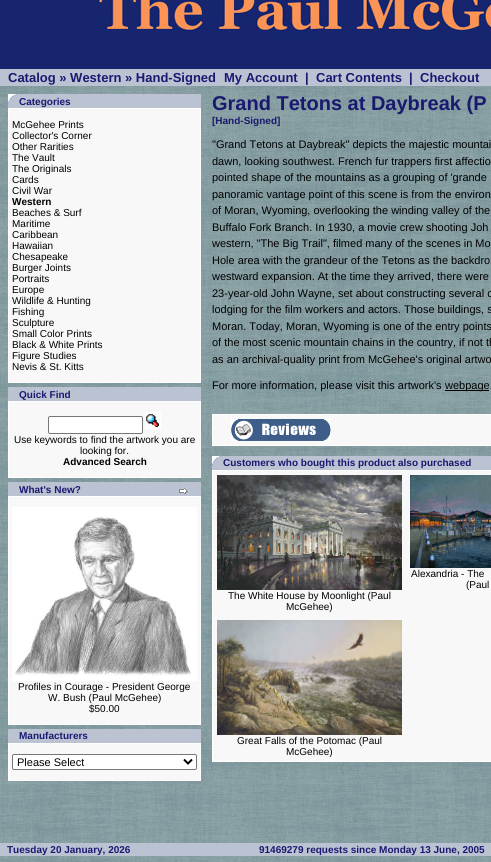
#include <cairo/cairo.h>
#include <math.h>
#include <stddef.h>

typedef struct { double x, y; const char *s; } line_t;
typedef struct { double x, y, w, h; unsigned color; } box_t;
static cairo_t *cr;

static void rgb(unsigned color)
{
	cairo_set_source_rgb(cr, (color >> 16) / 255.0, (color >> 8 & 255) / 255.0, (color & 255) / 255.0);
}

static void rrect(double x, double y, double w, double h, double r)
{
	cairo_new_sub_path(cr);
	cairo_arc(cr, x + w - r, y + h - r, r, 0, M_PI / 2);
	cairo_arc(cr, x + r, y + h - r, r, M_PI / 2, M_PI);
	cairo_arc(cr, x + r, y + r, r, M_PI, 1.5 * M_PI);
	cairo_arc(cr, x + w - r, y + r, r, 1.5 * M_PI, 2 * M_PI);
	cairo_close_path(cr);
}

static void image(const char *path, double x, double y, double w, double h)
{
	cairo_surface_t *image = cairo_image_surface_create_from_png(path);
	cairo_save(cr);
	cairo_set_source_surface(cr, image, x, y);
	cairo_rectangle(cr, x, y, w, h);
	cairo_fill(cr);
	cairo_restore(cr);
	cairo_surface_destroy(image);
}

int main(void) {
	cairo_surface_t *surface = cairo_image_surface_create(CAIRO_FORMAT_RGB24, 491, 862);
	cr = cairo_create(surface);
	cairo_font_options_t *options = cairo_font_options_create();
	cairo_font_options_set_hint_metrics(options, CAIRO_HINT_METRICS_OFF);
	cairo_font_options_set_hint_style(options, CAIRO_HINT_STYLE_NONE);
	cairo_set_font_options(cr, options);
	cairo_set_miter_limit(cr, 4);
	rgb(0xffffff);
	cairo_paint(cr);
	image("img/1.png", 0, 86, 491, 776);
	image("img/2.png", 0, 0, 491, 69);
	rgb(0xbbc3d3);
	cairo_rectangle(cr, 0, 69, 491, 17);
	cairo_fill(cr);
	cairo_rectangle(cr, 8, 94, 193, 14);
	cairo_fill(cr);
	image("img/3.png", 8, 94, 10, 10);
	{
		static const box_t items[] = {
			{8, 108, 193, 275, 0xffffff},
			{9, 109, 191, 273, 0xf8f8f9},
			{8, 387, 193, 14, 0xbbc3d3},
			{8, 401, 193, 77, 0xffffff},
			{9, 402, 191, 75, 0xf8f8f9},
		};
		for (size_t i = 0; i < sizeof items / sizeof *items; i++) {
			rgb(items[i].color);
			cairo_rectangle(cr, items[i].x, items[i].y, items[i].w, items[i].h);
			cairo_fill(cr);
		}
	}
	rgb(0xffffff);
	rrect(48.5, 416.5, 94, 17, 1.5);
	cairo_fill_preserve(cr);
	rgb(0x767676);
	cairo_set_line_width(cr, 1);
	cairo_stroke(cr);
	image("img/4.png", 145, 412, 16, 17);
	rgb(0xbbc3d3);
	cairo_rectangle(cr, 8, 482, 193, 14);
	cairo_fill(cr);
	image("img/5.png", 179, 488, 9, 6);
	rgb(0xffffff);
	cairo_rectangle(cr, 8, 496, 193, 229);
	cairo_fill(cr);
	rgb(0xf8f8f9);
	cairo_rectangle(cr, 9, 497, 191, 227);
	cairo_fill(cr);
	image("img/6.png", 12, 507, 185, 174);
	{
		static const box_t items[] = {
			{8, 729, 193, 14, 0xbbc3d3},
			{8, 743, 193, 38, 0xffffff},
			{9, 744, 191, 36, 0xf8f8f9},
		};
		for (size_t i = 0; i < sizeof items / sizeof *items; i++) {
			rgb(items[i].color);
			cairo_rectangle(cr, items[i].x, items[i].y, items[i].w, items[i].h);
			cairo_fill(cr);
		}
	}
	rgb(0xffffff);
	rrect(12.5, 754.5, 184, 15, 1.5);
	cairo_fill_preserve(cr);
	rgb(0x767676);
	cairo_stroke(cr);
	cairo_new_path(cr);
	cairo_move_to(cr, 184, 759.5);
	cairo_line_to(cr, 188, 763.5);
	cairo_line_to(cr, 192, 759.5);
	rgb(0x000000);
	cairo_set_line_width(cr, 2);
	cairo_stroke(cr);
	{
		static const box_t items[] = {
			{445, 390, 44, 1, 0x000000},
			{212, 414, 279, 32, 0xffffff},
			{213, 415, 278, 30, 0xf8f8f9},
		};
		for (size_t i = 0; i < sizeof items / sizeof *items; i++) {
			rgb(items[i].color);
			cairo_rectangle(cr, items[i].x, items[i].y, items[i].w, items[i].h);
			cairo_fill(cr);
		}
	}
	image("img/7.png", 231, 419, 100, 22);
	rgb(0xbbc3d3);
	cairo_rectangle(cr, 212, 456, 279, 14);
	cairo_fill(cr);
	image("img/3.png", 212, 456, 10, 10);
	rgb(0xffffff);
	cairo_rectangle(cr, 212, 470, 279, 292);
	cairo_fill(cr);
	rgb(0xf8f8f9);
	cairo_rectangle(cr, 213, 471, 278, 290);
	cairo_fill(cr);
	image("img/8.png", 410, 475, 81, 93);
	image("img/9.png", 217, 475, 185, 115);
	image("img/10.png", 217, 620, 185, 115);
	rgb(0xbbc3d3);
	cairo_rectangle(cr, 0, 843, 491, 13);
	cairo_fill(cr);
	cairo_select_font_face(cr, "Liberation Sans", CAIRO_FONT_SLANT_NORMAL, CAIRO_FONT_WEIGHT_BOLD);
	cairo_set_font_size(cr, 13);
	rgb(0x191970);
	{
		static const line_t items[] = {
			{8, 82, "Catalog » Western » Hand-Signed"},
			{224, 82, "My Account"},
			{305, 82, "|"},
			{316, 82, "Cart Contents"},
			{409, 82, "|"},
			{420, 82, "Checkout"},
		};
		for (size_t i = 0; i < sizeof items / sizeof *items; i++) {
			cairo_move_to(cr, items[i].x, items[i].y);
			cairo_show_text(cr, items[i].s);
		}
	}
	cairo_set_font_size(cr, 10);
	cairo_move_to(cr, 19, 105);
	cairo_show_text(cr, "Categories");
	cairo_select_font_face(cr, "Liberation Sans", CAIRO_FONT_SLANT_NORMAL, CAIRO_FONT_WEIGHT_NORMAL);
	rgb(0x000000);
	{
		static const line_t items[] = {
			{12, 128, "McGehee Prints"},
			{12, 139, "Collector's Corner"},
			{12, 150, "Other Rarities"},
			{12, 161, "The Vault"},
			{12, 172, "The Originals"},
			{12, 183, "Cards"},
			{12, 194, "Civil War"},
		};
		for (size_t i = 0; i < sizeof items / sizeof *items; i++) {
			cairo_move_to(cr, items[i].x, items[i].y);
			cairo_show_text(cr, items[i].s);
		}
	}
	cairo_select_font_face(cr, "Liberation Sans", CAIRO_FONT_SLANT_NORMAL, CAIRO_FONT_WEIGHT_BOLD);
	cairo_move_to(cr, 12, 205);
	cairo_show_text(cr, "Western");
	cairo_select_font_face(cr, "Liberation Sans", CAIRO_FONT_SLANT_NORMAL, CAIRO_FONT_WEIGHT_NORMAL);
	{
		static const line_t items[] = {
			{12, 216, "Beaches & Surf"},
			{12, 227, "Maritime"},
			{12, 238, "Caribbean"},
			{12, 249, "Hawaiian"},
			{12, 260, "Chesapeake"},
			{12, 271, "Burger Joints"},
			{12, 282, "Portraits"},
			{12, 293, "Europe"},
			{12, 304, "Wildlife & Hunting"},
			{12, 315, "Fishing"},
			{12, 326, "Sculpture"},
			{12, 337, "Small Color Prints"},
			{12, 348, "Black & White Prints"},
			{12, 359, "Figure Studies"},
			{12, 370, "Nevis & St. Kitts"},
		};
		for (size_t i = 0; i < sizeof items / sizeof *items; i++) {
			cairo_move_to(cr, items[i].x, items[i].y);
			cairo_show_text(cr, items[i].s);
		}
	}
	cairo_select_font_face(cr, "Liberation Sans", CAIRO_FONT_SLANT_NORMAL, CAIRO_FONT_WEIGHT_BOLD);
	rgb(0x191970);
	cairo_move_to(cr, 19, 398);
	cairo_show_text(cr, "Quick Find");
	cairo_select_font_face(cr, "Liberation Sans", CAIRO_FONT_SLANT_NORMAL, CAIRO_FONT_WEIGHT_NORMAL);
	rgb(0x000000);
	cairo_move_to(cr, 14, 443);
	cairo_show_text(cr, "Use keywords to find the artwork you are");
	cairo_move_to(cr, 80, 454);
	cairo_show_text(cr, "looking for.");
	cairo_select_font_face(cr, "Liberation Sans", CAIRO_FONT_SLANT_NORMAL, CAIRO_FONT_WEIGHT_BOLD);
	cairo_move_to(cr, 63, 465);
	cairo_show_text(cr, "Advanced Search");
	rgb(0x191970);
	cairo_move_to(cr, 19, 493);
	cairo_show_text(cr, "What's New?");
	cairo_select_font_face(cr, "Liberation Sans", CAIRO_FONT_SLANT_NORMAL, CAIRO_FONT_WEIGHT_NORMAL);
	rgb(0x000000);
	{
		static const line_t items[] = {
			{18, 690, "Profiles in Courage - President George"},
			{48, 701, "W. Bush (Paul McGehee)"},
			{89, 712, "$50.00"},
		};
		for (size_t i = 0; i < sizeof items / sizeof *items; i++) {
			cairo_move_to(cr, items[i].x, items[i].y);
			cairo_show_text(cr, items[i].s);
		}
	}
	cairo_select_font_face(cr, "Liberation Sans", CAIRO_FONT_SLANT_NORMAL, CAIRO_FONT_WEIGHT_BOLD);
	rgb(0x191970);
	cairo_move_to(cr, 19, 739);
	cairo_show_text(cr, "Manufacturers");
	cairo_select_font_face(cr, "Liberation Sans", CAIRO_FONT_SLANT_NORMAL, CAIRO_FONT_WEIGHT_NORMAL);
	cairo_set_font_size(cr, 11);
	rgb(0x000000);
	cairo_move_to(cr, 17, 766);
	cairo_show_text(cr, "Please Select");
	cairo_select_font_face(cr, "Liberation Sans", CAIRO_FONT_SLANT_NORMAL, CAIRO_FONT_WEIGHT_BOLD);
	cairo_set_font_size(cr, 20);
	rgb(0x191970);
	cairo_move_to(cr, 212, 110);
	cairo_show_text(cr, "Grand Tetons at Daybreak (P");
	cairo_set_font_size(cr, 10);
	cairo_move_to(cr, 212, 124);
	cairo_show_text(cr, "[Hand-Signed]");
	cairo_select_font_face(cr, "Liberation Sans", CAIRO_FONT_SLANT_NORMAL, CAIRO_FONT_WEIGHT_NORMAL);
	cairo_set_font_size(cr, 11);
	rgb(0x000000);
	{
		static const line_t items[] = {
			{212, 148, "\"Grand Tetons at Daybreak\" depicts the majestic mountai"},
			{212, 165, "dawn, looking southwest. French fur trappers first affectio"},
			{212, 181, "pointed shape of the mountains as a grouping of 'grande"},
			{212, 198, "panoramic vantage point of this scene is from the environ"},
			{212, 214, "of Moran, Wyoming, overlooking the winding valley of the"},
			{212, 231, "Buffalo Fork Branch. In 1930, a movie crew shooting Joh"},
			{212, 247, "western, \"The Big Trail\", filmed many of the scenes in Mo"},
			{212, 264, "Hole area with the grandeur of the Tetons as the backdro"},
			{212, 280, "westward expansion. At the time they arrived, there were"},
			{212, 297, "23-year-old John Wayne, set about constructing several c"},
			{212, 313, "lodging for the film workers and actors. Those buildings, s"},
			{212, 330, "Moran. Today, Moran, Wyoming is one of the entry points"},
			{212, 346, "of the most scenic mountain chains in the country, if not th"},
			{212, 363, "as an archival-quality print from McGehee's original artwo"},
			{212, 389, "For more information, please visit this artwork's"},
			{445, 389, "webpage."},
		};
		for (size_t i = 0; i < sizeof items / sizeof *items; i++) {
			cairo_move_to(cr, items[i].x, items[i].y);
			cairo_show_text(cr, items[i].s);
		}
	}
	cairo_select_font_face(cr, "Liberation Sans", CAIRO_FONT_SLANT_NORMAL, CAIRO_FONT_WEIGHT_BOLD);
	cairo_set_font_size(cr, 10);
	rgb(0x191970);
	cairo_move_to(cr, 223, 466);
	cairo_show_text(cr, "Customers who bought this product also purchased");
	cairo_select_font_face(cr, "Liberation Sans", CAIRO_FONT_SLANT_NORMAL, CAIRO_FONT_WEIGHT_NORMAL);
	rgb(0x000000);
	{
		static const line_t items[] = {
			{411, 577, "Alexandria - The"},
			{466, 588, "(Paul"},
			{228, 599, "The White House by Moonlight (Paul"},
			{286, 610, "McGehee)"},
			{237, 744, "Great Falls of the Potomac (Paul"},
			{286, 755, "McGehee)"},
		};
		for (size_t i = 0; i < sizeof items / sizeof *items; i++) {
			cairo_move_to(cr, items[i].x, items[i].y);
			cairo_show_text(cr, items[i].s);
		}
	}
	cairo_select_font_face(cr, "Liberation Sans", CAIRO_FONT_SLANT_NORMAL, CAIRO_FONT_WEIGHT_BOLD);
	rgb(0x191970);
	cairo_move_to(cr, 7, 853);
	cairo_show_text(cr, "Tuesday 20 January, 2026");
	cairo_move_to(cr, 259, 853);
	cairo_show_text(cr, "91469279 requests since Monday 13 June, 2005");
	cairo_surface_write_to_png(surface, "page.png");
	cairo_font_options_destroy(options);
	cairo_destroy(cr);
	cairo_surface_destroy(surface);
	return 0;
}
